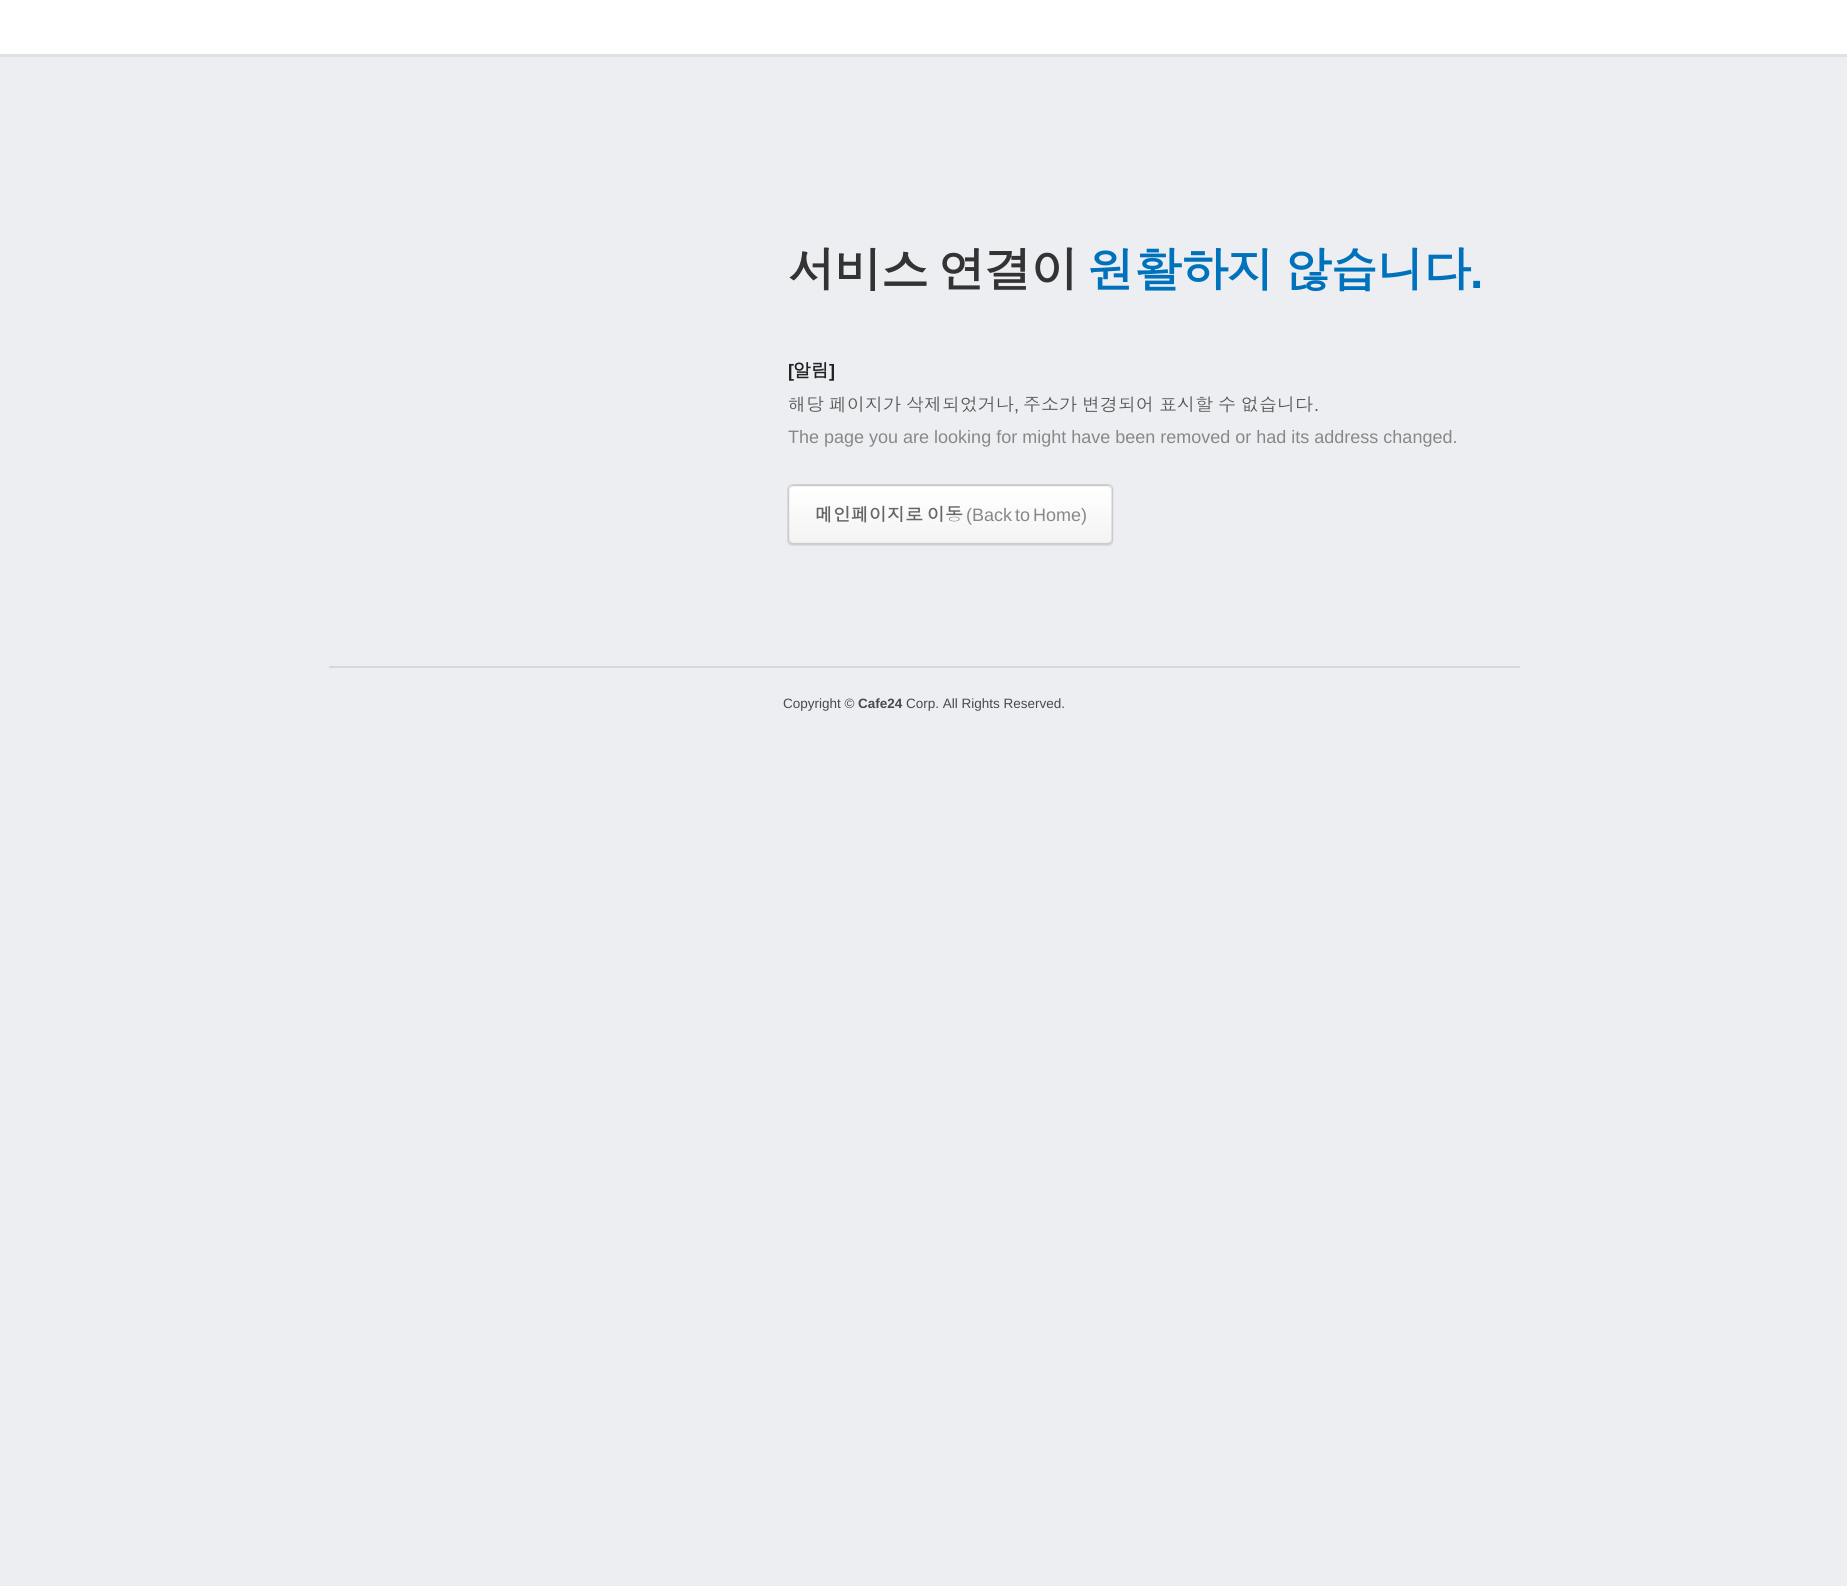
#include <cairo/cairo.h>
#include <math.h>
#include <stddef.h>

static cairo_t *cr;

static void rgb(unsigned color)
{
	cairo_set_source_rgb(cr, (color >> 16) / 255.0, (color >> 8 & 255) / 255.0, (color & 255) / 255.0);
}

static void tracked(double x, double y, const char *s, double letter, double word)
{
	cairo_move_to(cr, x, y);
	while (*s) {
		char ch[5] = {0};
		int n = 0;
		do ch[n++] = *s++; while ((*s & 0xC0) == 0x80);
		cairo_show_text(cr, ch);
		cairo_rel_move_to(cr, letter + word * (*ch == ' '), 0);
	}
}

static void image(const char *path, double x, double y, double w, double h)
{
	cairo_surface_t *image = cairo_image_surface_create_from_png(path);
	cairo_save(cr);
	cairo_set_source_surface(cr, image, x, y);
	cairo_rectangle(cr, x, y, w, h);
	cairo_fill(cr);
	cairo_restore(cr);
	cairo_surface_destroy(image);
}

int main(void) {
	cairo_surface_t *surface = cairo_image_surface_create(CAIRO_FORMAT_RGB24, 1847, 1586);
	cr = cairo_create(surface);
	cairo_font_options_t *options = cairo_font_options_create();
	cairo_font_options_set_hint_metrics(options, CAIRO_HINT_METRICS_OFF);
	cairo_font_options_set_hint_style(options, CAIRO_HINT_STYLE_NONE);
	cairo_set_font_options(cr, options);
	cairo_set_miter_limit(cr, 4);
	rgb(0xedeef2);
	cairo_paint(cr);
	rgb(0xffffff);
	cairo_rectangle(cr, 0, 0, 1847, 54);
	cairo_fill(cr);
	rgb(0xe0e1e4);
	cairo_rectangle(cr, 0, 54, 1847, 3);
	cairo_fill(cr);
	image("img/1.png", 787, 484, 322, 62);
	image("img/2.png", 793, 484, 321, 62);
	rgb(0xd7d7d7);
	cairo_rectangle(cr, 329, 666, 1191, 2);
	cairo_fill(cr);
	cairo_select_font_face(cr, "Dotum", CAIRO_FONT_SLANT_NORMAL, CAIRO_FONT_WEIGHT_BOLD);
	cairo_set_font_size(cr, 48);
	rgb(0x333333);
	tracked(788, 288, "서비스 연결이", -1.5, -4);
	rgb(0x0072bc);
	tracked(1087, 288, "원활하지 않습니다", -1.5, -4);
	cairo_select_font_face(cr, "Liberation Sans", CAIRO_FONT_SLANT_NORMAL, CAIRO_FONT_WEIGHT_BOLD);
	tracked(1470, 288, ".", -1.5, 0);
	cairo_set_font_size(cr, 18);
	rgb(0x222222);
	cairo_move_to(cr, 788, 377);
	cairo_show_text(cr, "[");
	cairo_select_font_face(cr, "Dotum", CAIRO_FONT_SLANT_NORMAL, CAIRO_FONT_WEIGHT_BOLD);
	cairo_move_to(cr, 793, 377);
	cairo_show_text(cr, "알림");
	cairo_select_font_face(cr, "Liberation Sans", CAIRO_FONT_SLANT_NORMAL, CAIRO_FONT_WEIGHT_BOLD);
	cairo_move_to(cr, 829, 377);
	cairo_show_text(cr, "]");
	cairo_select_font_face(cr, "Dotum", CAIRO_FONT_SLANT_NORMAL, CAIRO_FONT_WEIGHT_NORMAL);
	rgb(0x555555);
	tracked(788, 411, "해당 페이지가 삭제되었거나", 0, -1);
	cairo_select_font_face(cr, "Liberation Sans", CAIRO_FONT_SLANT_NORMAL, CAIRO_FONT_WEIGHT_NORMAL);
	cairo_move_to(cr, 1014, 411);
	cairo_show_text(cr, ",");
	cairo_select_font_face(cr, "Dotum", CAIRO_FONT_SLANT_NORMAL, CAIRO_FONT_WEIGHT_NORMAL);
	tracked(1023, 411, "주소가 변경되어 표시할 수 없습니다", 0, -1);
	cairo_select_font_face(cr, "Liberation Sans", CAIRO_FONT_SLANT_NORMAL, CAIRO_FONT_WEIGHT_NORMAL);
	cairo_move_to(cr, 1314, 411);
	cairo_show_text(cr, ".");
	rgb(0x888888);
	cairo_move_to(cr, 788, 443);
	cairo_show_text(cr, "The page you are looking for might have been removed or had its address changed.");
	cairo_select_font_face(cr, "Dotum", CAIRO_FONT_SLANT_NORMAL, CAIRO_FONT_WEIGHT_BOLD);
	rgb(0x666666);
	tracked(815, 521, "메인페이지로 이동", 0, -2);
	cairo_select_font_face(cr, "Liberation Sans", CAIRO_FONT_SLANT_NORMAL, CAIRO_FONT_WEIGHT_NORMAL);
	rgb(0x888888);
	tracked(966, 521, "(Back to Home)", 0, -2);
	cairo_set_font_size(cr, 13.5);
	rgb(0x4a4949);
	cairo_move_to(cr, 783, 708);
	cairo_show_text(cr, "Copyright ©");
	cairo_select_font_face(cr, "Liberation Sans", CAIRO_FONT_SLANT_NORMAL, CAIRO_FONT_WEIGHT_BOLD);
	cairo_move_to(cr, 858, 708);
	cairo_show_text(cr, "Cafe24");
	cairo_select_font_face(cr, "Liberation Sans", CAIRO_FONT_SLANT_NORMAL, CAIRO_FONT_WEIGHT_NORMAL);
	cairo_move_to(cr, 906, 708);
	cairo_show_text(cr, "Corp. All Rights Reserved.");
	cairo_surface_write_to_png(surface, "page.png");
	cairo_font_options_destroy(options);
	cairo_destroy(cr);
	cairo_surface_destroy(surface);
	return 0;
}
